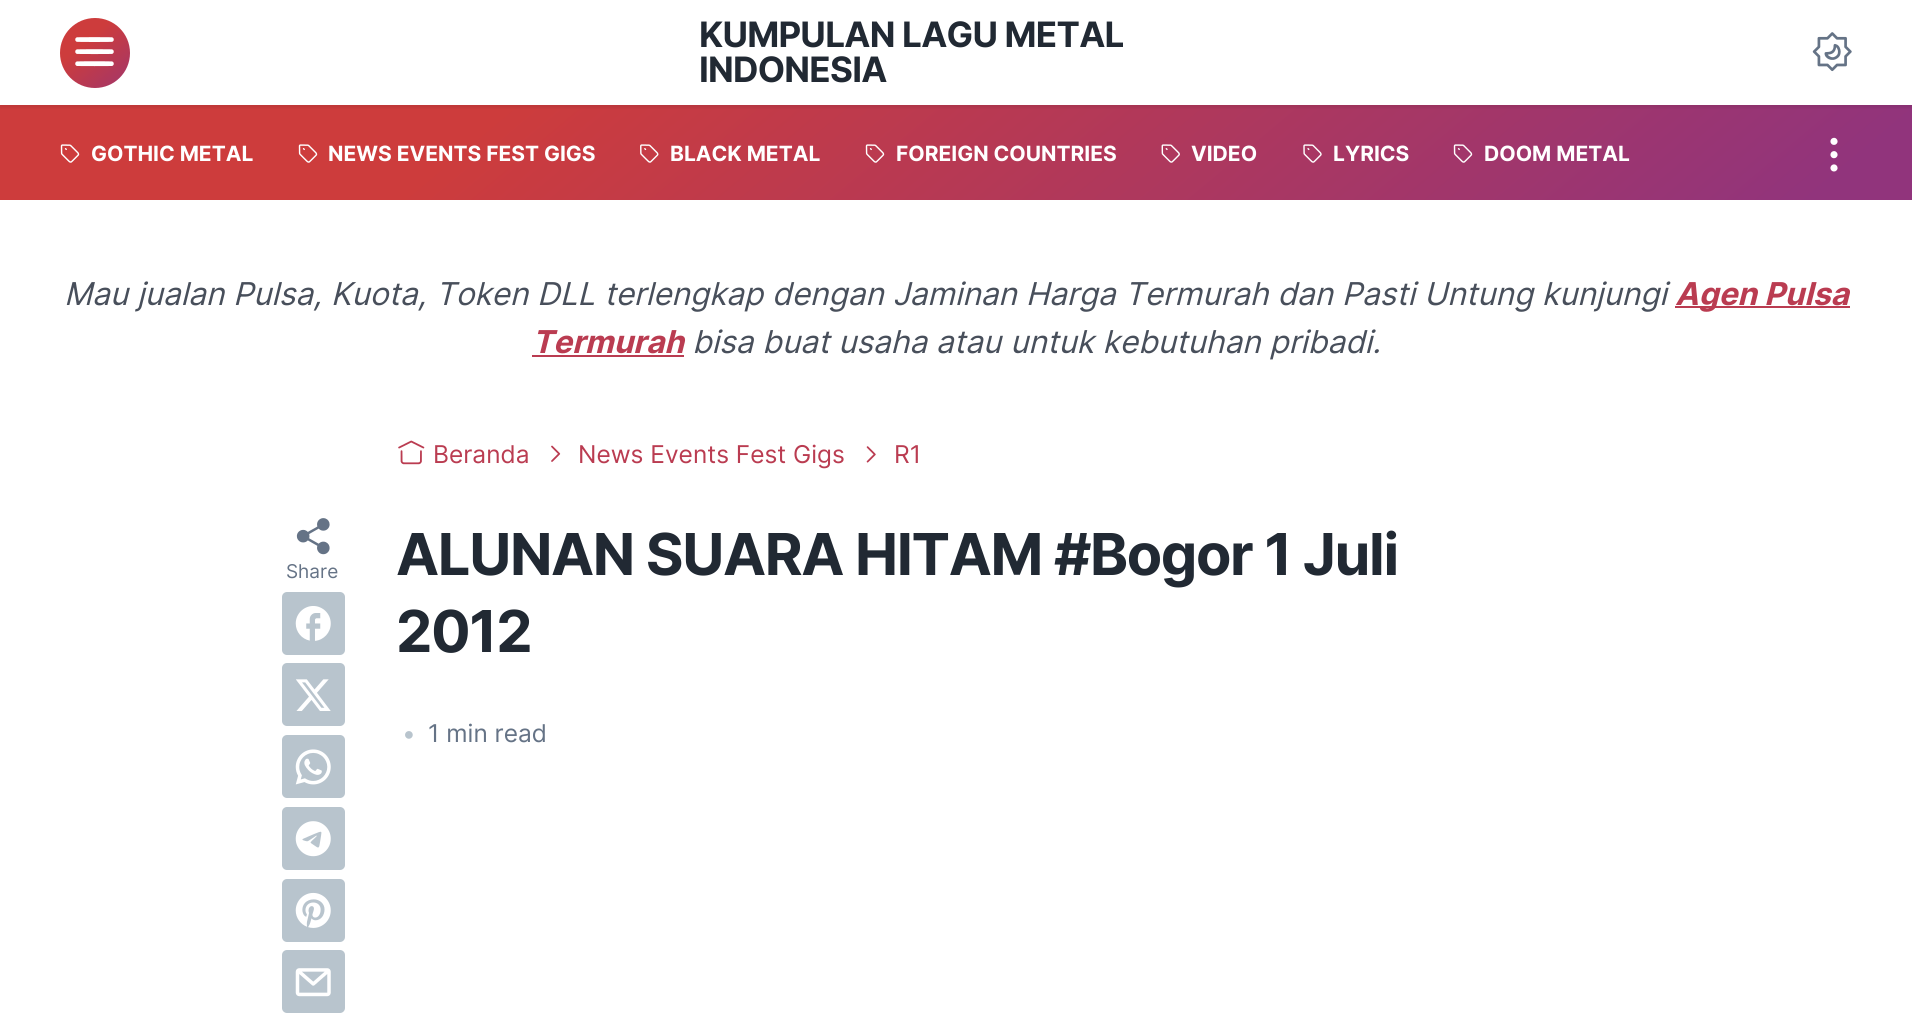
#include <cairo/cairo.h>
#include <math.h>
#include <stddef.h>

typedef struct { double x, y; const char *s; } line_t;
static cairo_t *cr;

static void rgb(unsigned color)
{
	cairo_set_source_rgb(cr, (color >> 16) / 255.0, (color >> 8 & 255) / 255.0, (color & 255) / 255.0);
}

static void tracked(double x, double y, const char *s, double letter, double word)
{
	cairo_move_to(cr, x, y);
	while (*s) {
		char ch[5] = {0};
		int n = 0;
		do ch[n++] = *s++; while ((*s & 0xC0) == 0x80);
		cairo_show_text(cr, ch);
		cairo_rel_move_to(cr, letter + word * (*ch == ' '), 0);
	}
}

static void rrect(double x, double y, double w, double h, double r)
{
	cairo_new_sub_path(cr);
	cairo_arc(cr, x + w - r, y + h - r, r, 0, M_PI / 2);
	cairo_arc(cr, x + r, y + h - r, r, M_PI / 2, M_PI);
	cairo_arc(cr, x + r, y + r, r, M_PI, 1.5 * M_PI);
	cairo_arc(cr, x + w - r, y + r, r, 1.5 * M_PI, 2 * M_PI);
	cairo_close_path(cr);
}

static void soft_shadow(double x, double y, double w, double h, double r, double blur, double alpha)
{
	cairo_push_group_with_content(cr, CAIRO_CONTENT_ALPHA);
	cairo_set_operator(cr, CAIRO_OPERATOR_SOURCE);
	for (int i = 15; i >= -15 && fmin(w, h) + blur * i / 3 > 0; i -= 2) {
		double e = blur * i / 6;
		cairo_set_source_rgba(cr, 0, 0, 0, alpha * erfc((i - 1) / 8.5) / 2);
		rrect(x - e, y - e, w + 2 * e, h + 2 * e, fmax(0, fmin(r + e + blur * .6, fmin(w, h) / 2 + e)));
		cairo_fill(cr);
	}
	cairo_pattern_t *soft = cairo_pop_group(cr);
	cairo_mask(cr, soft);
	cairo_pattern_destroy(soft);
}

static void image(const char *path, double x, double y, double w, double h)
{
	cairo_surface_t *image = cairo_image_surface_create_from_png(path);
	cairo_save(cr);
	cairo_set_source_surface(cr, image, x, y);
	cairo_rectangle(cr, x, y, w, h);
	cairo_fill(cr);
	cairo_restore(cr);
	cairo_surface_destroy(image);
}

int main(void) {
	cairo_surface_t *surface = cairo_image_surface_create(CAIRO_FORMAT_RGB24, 1912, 1021);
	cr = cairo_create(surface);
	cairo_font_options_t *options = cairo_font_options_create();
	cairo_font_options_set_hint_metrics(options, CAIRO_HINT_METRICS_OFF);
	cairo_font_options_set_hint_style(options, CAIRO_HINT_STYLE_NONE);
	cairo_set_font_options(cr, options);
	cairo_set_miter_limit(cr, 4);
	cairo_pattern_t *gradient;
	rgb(0xffffff);
	cairo_paint(cr);
	gradient = cairo_pattern_create_linear(538, -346, 1375, 651);
	cairo_pattern_add_color_stop_rgba(gradient, 0.25, 0.804, 0.235, 0.235, 1);
	cairo_pattern_add_color_stop_rgba(gradient, 0.95, 0.569, 0.204, 0.486, 1);
	cairo_set_source(cr, gradient);
	cairo_pattern_destroy(gradient);
	cairo_rectangle(cr, 0, 105, 1912, 95);
	cairo_fill(cr);
	cairo_save(cr);
	cairo_rectangle(cr, 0, 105, 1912, 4);
	cairo_clip(cr);
	rgb(0x000000);
	soft_shadow(0, 2, 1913, 105, 0, 2.5, 0.1);
	cairo_restore(cr);
	gradient = cairo_pattern_create_linear(63, 15, 142, 109);
	cairo_pattern_add_color_stop_rgba(gradient, 0.28, 0.804, 0.235, 0.235, 1);
	cairo_pattern_add_color_stop_rgba(gradient, 1, 0.569, 0.204, 0.486, 1);
	cairo_set_source(cr, gradient);
	cairo_pattern_destroy(gradient);
	cairo_arc(cr, 95, 53, 35, 0, 2 * M_PI);
	cairo_fill(cr);
	image("img/1.png", 75, 37, 39, 30);
	image("img/2.png", 1812, 32, 40, 40);
	image("img/3.png", 60, 144, 20, 19);
	image("img/3.png", 298, 144, 20, 19);
	image("img/4.png", 640, 144, 19, 19);
	image("img/5.png", 865, 144, 20, 19);
	image("img/6.png", 1161, 144, 19, 19);
	image("img/7.png", 1303, 144, 19, 19);
	image("img/8.png", 1453, 144, 20, 19);
	image("img/9.png", 1830, 137, 8, 35);
	rgb(0xba3c51);
	cairo_rectangle(cr, 1675, 306, 175, 2);
	cairo_fill(cr);
	cairo_rectangle(cr, 532, 355, 152, 2);
	cairo_fill(cr);
	image("img/10.png", 398, 440, 27, 25);
	image("img/11.png", 551, 445, 10, 17);
	image("img/12.png", 866, 446, 10, 17);
	image("img/13.png", 296, 518, 34, 37);
	rgb(0xb8c4cd);
	rrect(282, 592, 63, 63, 5);
	cairo_fill(cr);
	image("img/14.png", 295, 606, 36, 35);
	rrect(282, 663, 63, 63, 5);
	cairo_fill(cr);
	image("img/15.png", 296, 679, 35, 32);
	rrect(282, 735, 63, 63, 5);
	cairo_fill(cr);
	image("img/16.png", 295, 749, 36, 36);
	rrect(282, 807, 63, 63, 5);
	cairo_fill(cr);
	image("img/17.png", 295, 821, 36, 36);
	rrect(282, 879, 63, 63, 5);
	cairo_fill(cr);
	image("img/18.png", 295, 892, 36, 36);
	rrect(282, 950, 63, 63, 5);
	cairo_fill(cr);
	image("img/19.png", 295, 968, 36, 29);
	cairo_select_font_face(cr, "Inter", CAIRO_FONT_SLANT_NORMAL, CAIRO_FONT_WEIGHT_BOLD);
	cairo_set_font_size(cr, 35);
	rgb(0x212933);
	tracked(699, 47, "KUMPULAN LAGU METAL", -0.75, 0);
	tracked(699, 82, "INDONESIA", -0.75, 0);
	cairo_set_font_size(cr, 21);
	rgb(0xffffff);
	{
		static const line_t items[] = {
			{91, 161, "GOTHIC METAL"},
			{328, 161, "NEWS EVENTS FEST GIGS"},
			{670, 161, "BLACK METAL"},
			{896, 161, "FOREIGN COUNTRIES"},
			{1191, 161, "VIDEO"},
			{1333, 161, "LYRICS"},
			{1484, 161, "DOOM METAL"},
		};
		for (size_t i = 0; i < sizeof items / sizeof *items; i++) {
			cairo_move_to(cr, items[i].x, items[i].y);
			cairo_show_text(cr, items[i].s);
		}
	}
	cairo_select_font_face(cr, "Inter", CAIRO_FONT_SLANT_ITALIC, CAIRO_FONT_WEIGHT_NORMAL);
	cairo_set_font_size(cr, 31.5);
	rgb(0x484f5b);
	cairo_move_to(cr, 64, 305);
	cairo_show_text(cr, "Mau jualan Pulsa, Kuota, Token DLL terlengkap dengan Jaminan Harga Termurah dan Pasti Untung kunjungi");
	cairo_select_font_face(cr, "Inter", CAIRO_FONT_SLANT_ITALIC, CAIRO_FONT_WEIGHT_BOLD);
	rgb(0xba3c51);
	cairo_move_to(cr, 1675, 305);
	cairo_show_text(cr, "Agen Pulsa");
	cairo_move_to(cr, 532, 353);
	cairo_show_text(cr, "Termurah");
	cairo_select_font_face(cr, "Inter", CAIRO_FONT_SLANT_ITALIC, CAIRO_FONT_WEIGHT_NORMAL);
	rgb(0x484f5b);
	cairo_move_to(cr, 692, 353);
	cairo_show_text(cr, "bisa buat usaha atau untuk kebutuhan pribadi.");
	cairo_select_font_face(cr, "Inter", CAIRO_FONT_SLANT_NORMAL, CAIRO_FONT_WEIGHT_NORMAL);
	cairo_set_font_size(cr, 24.5);
	rgb(0xba3c51);
	{
		static const line_t items[] = {
			{433, 463, "Beranda"},
			{578, 463, "News Events Fest Gigs"},
			{894, 463, "R1"},
		};
		for (size_t i = 0; i < sizeof items / sizeof *items; i++) {
			cairo_move_to(cr, items[i].x, items[i].y);
			cairo_show_text(cr, items[i].s);
		}
	}
	cairo_set_font_size(cr, 19);
	rgb(0x657386);
	cairo_move_to(cr, 286, 578);
	cairo_show_text(cr, "Share");
	cairo_select_font_face(cr, "Inter", CAIRO_FONT_SLANT_NORMAL, CAIRO_FONT_WEIGHT_BOLD);
	cairo_set_font_size(cr, 57.75);
	rgb(0x212933);
	tracked(396, 575, "ALUNAN SUARA HITAM #Bogor 1 Juli", -1.4, 0);
	tracked(396, 652, "2012", -1.4, 0);
	cairo_select_font_face(cr, "Inter", CAIRO_FONT_SLANT_NORMAL, CAIRO_FONT_WEIGHT_NORMAL);
	cairo_set_font_size(cr, 24.5);
	rgb(0xb8c4cd);
	cairo_move_to(cr, 402, 742);
	cairo_show_text(cr, "•");
	rgb(0x657386);
	cairo_move_to(cr, 428, 742);
	cairo_show_text(cr, "1 min read");
	cairo_surface_write_to_png(surface, "page.png");
	cairo_font_options_destroy(options);
	cairo_destroy(cr);
	cairo_surface_destroy(surface);
	return 0;
}
